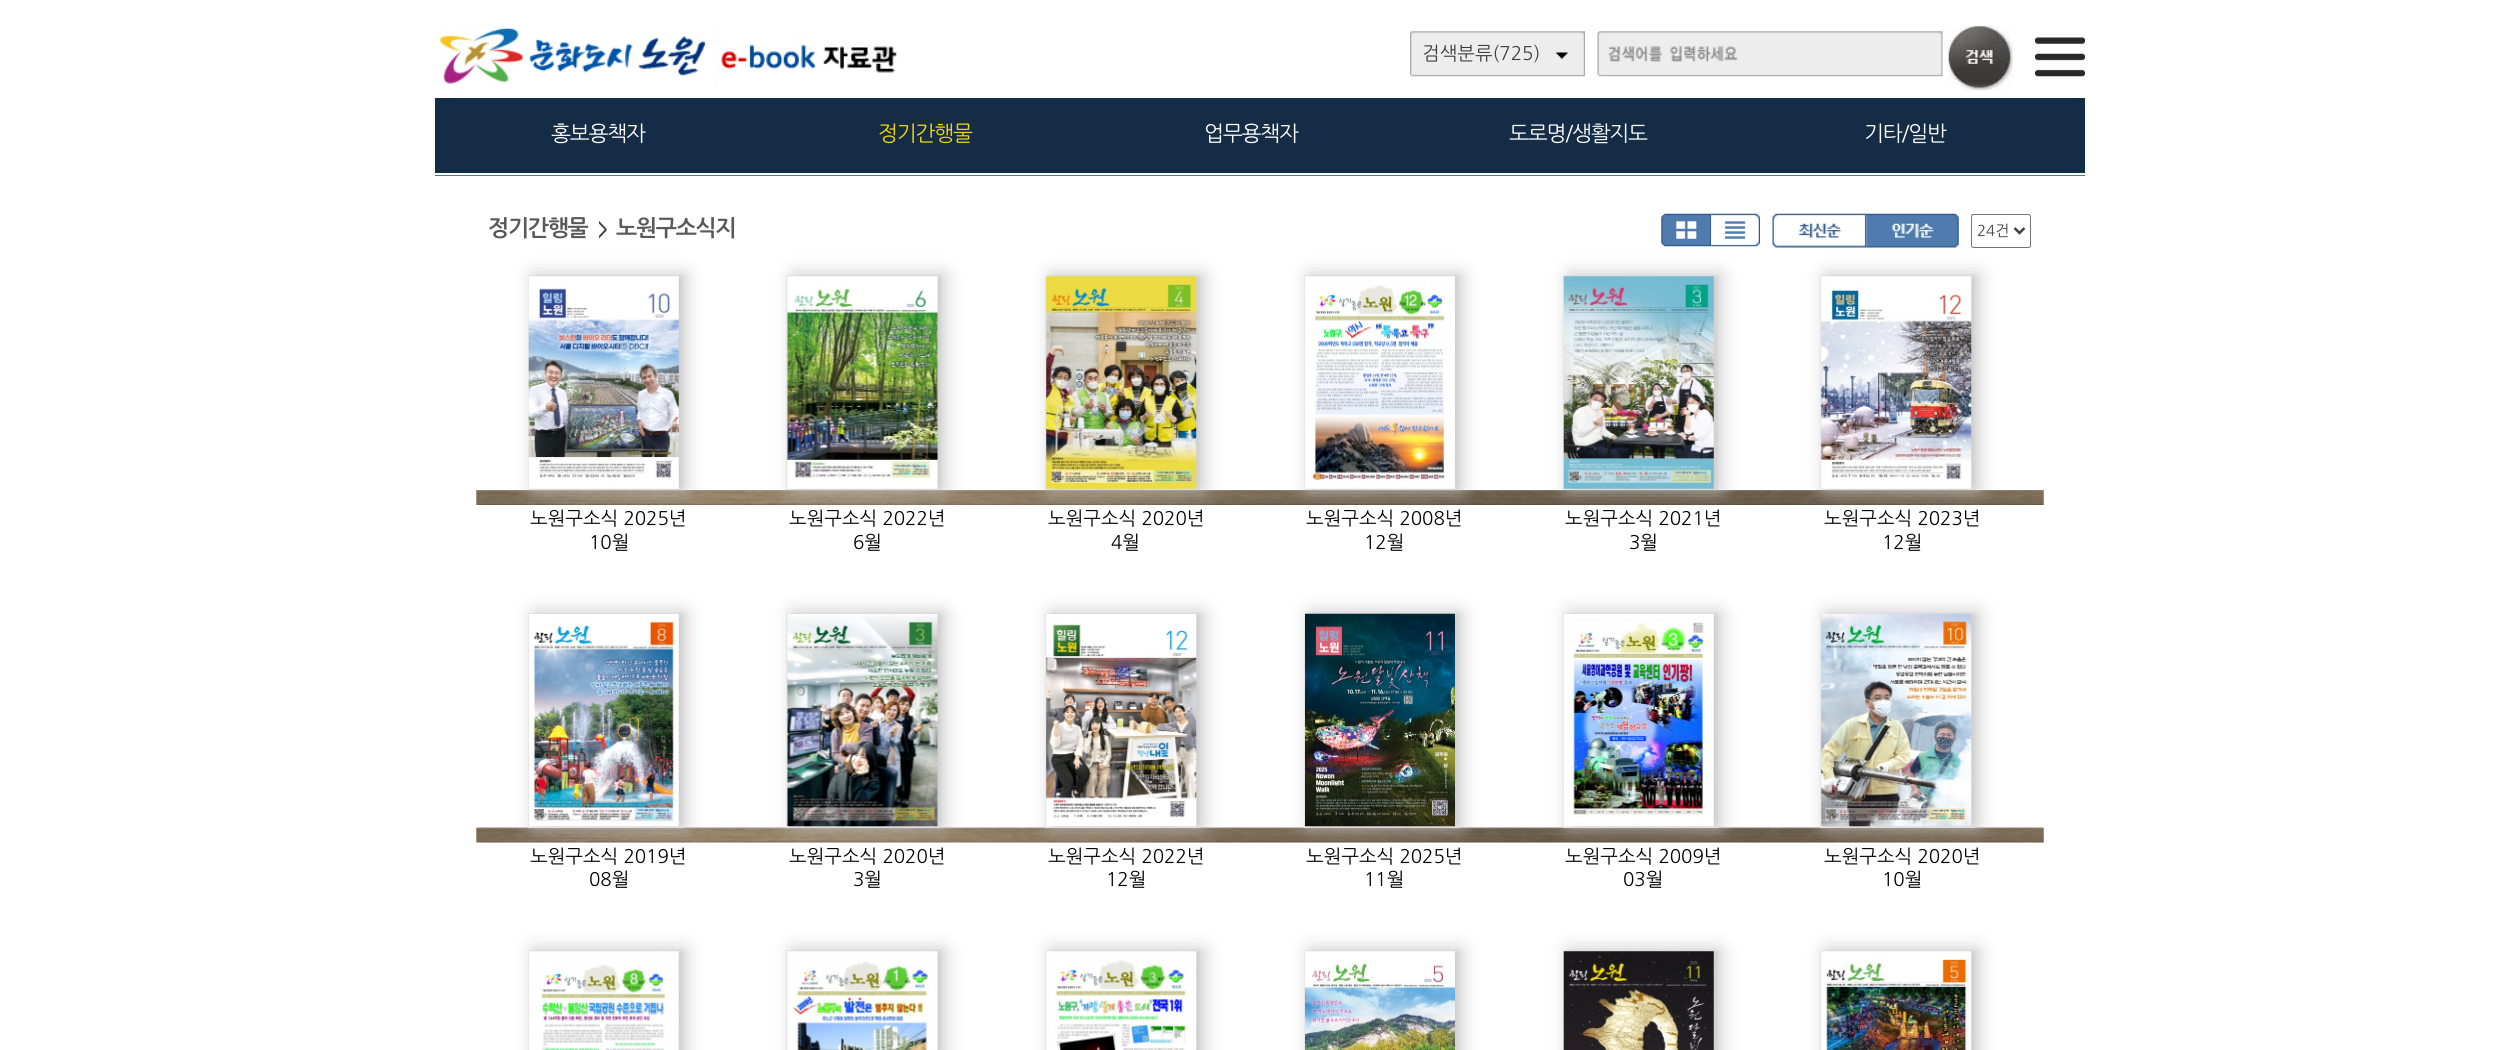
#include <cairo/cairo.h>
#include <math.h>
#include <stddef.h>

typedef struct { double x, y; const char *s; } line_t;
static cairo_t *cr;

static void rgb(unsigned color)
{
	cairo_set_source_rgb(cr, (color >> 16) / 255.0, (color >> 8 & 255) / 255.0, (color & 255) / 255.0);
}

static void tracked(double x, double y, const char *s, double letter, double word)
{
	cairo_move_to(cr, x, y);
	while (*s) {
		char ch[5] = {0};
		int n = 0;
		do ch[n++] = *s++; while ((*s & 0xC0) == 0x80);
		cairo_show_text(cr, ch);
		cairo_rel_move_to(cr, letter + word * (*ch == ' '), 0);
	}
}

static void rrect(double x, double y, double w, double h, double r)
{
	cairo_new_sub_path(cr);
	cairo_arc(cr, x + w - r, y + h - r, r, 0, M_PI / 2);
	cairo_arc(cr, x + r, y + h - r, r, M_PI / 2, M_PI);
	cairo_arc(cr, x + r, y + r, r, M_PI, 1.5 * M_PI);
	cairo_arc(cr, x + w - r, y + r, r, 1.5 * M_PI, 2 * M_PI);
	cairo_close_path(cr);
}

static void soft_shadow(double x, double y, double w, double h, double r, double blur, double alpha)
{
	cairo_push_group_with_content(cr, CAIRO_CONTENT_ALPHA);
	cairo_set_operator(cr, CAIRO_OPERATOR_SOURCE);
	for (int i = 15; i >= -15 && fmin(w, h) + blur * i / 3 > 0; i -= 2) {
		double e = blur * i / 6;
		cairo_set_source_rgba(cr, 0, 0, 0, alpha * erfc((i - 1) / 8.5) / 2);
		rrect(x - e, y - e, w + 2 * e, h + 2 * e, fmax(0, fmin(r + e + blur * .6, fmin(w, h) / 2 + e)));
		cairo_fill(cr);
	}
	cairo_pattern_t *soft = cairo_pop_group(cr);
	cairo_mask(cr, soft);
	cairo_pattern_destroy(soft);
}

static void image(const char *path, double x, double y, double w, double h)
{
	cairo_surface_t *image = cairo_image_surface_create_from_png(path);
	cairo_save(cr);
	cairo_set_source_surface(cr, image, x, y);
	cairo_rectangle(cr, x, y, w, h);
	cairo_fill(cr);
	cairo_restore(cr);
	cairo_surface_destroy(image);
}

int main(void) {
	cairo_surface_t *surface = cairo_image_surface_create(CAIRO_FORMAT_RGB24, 2518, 1050);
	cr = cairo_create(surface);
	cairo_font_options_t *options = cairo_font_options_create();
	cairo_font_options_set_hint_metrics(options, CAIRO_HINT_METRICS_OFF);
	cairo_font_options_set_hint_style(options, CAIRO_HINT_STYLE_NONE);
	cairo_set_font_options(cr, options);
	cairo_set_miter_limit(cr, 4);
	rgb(0xffffff);
	cairo_paint(cr);
	image("img/1.png", 439, 28, 458, 56);
	image("img/2.png", 1410, 31, 175, 46);
	image("img/3.png", 1597, 31, 346, 46);
	image("img/4.png", 1944, 24, 70, 67);
	image("img/5.png", 2035, 37, 50, 40);
	rgb(0x142c46);
	cairo_rectangle(cr, 435, 98, 1650, 75);
	cairo_fill(cr);
	rgb(0x3180b9);
	cairo_rectangle(cr, 435, 175, 1650, 1);
	cairo_fill(cr);
	image("img/6.png", 1661, 213, 51, 34);
	image("img/7.png", 1711, 213, 49, 34);
	image("img/8.png", 1772, 213, 95, 35);
	image("img/9.png", 1866, 213, 93, 35);
	rrect(1971.5, 214.5, 59, 33, 2);
	rgb(0x767676);
	cairo_set_line_width(cr, 1);
	cairo_stroke(cr);
	cairo_new_path(cr);
	cairo_move_to(cr, 2014.5, 228);
	cairo_line_to(cr, 2019.5, 233);
	cairo_line_to(cr, 2024.5, 228);
	rgb(0x3f3f3f);
	cairo_set_line_width(cr, 2.5);
	cairo_stroke(cr);
	image("img/10.png", 476, 490, 1568, 15);
	rgb(0xf1f1f2);
	cairo_rectangle(cr, 528, 275, 155, 215);
	cairo_fill(cr);
	rgb(0xc6c6c6);
	soft_shadow(534, 275, 151, 214, 0, 9.5, 1);
	image("img/11.png", 528, 276, 151, 213);
	rgb(0xf1f1f2);
	cairo_rectangle(cr, 786, 275, 155, 215);
	cairo_fill(cr);
	rgb(0xc6c6c6);
	soft_shadow(793, 275, 151, 214, 0, 9.5, 1);
	image("img/12.png", 787, 276, 151, 213);
	rgb(0xf1f1f2);
	cairo_rectangle(cr, 1045, 275, 155, 215);
	cairo_fill(cr);
	rgb(0xc6c6c6);
	soft_shadow(1051, 275, 152, 214, 0, 9.5, 1);
	image("img/13.png", 1046, 276, 151, 213);
	rgb(0xf1f1f2);
	cairo_rectangle(cr, 1304, 275, 155, 215);
	cairo_fill(cr);
	rgb(0xc6c6c6);
	soft_shadow(1310, 275, 151, 214, 0, 9.5, 1);
	image("img/14.png", 1305, 276, 150, 213);
	rgb(0xf1f1f2);
	cairo_rectangle(cr, 1563, 275, 155, 215);
	cairo_fill(cr);
	rgb(0xc6c6c6);
	soft_shadow(1569, 275, 151, 214, 0, 9.5, 1);
	image("img/15.png", 1563, 276, 151, 213);
	rgb(0xf1f1f2);
	cairo_rectangle(cr, 1820, 275, 155, 215);
	cairo_fill(cr);
	rgb(0xc6c6c6);
	soft_shadow(1826, 275, 152, 214, 0, 9.5, 1);
	image("img/16.png", 1821, 276, 151, 213);
	image("img/17.png", 476, 827, 1568, 16);
	rgb(0xf1f1f2);
	cairo_rectangle(cr, 528, 613, 155, 215);
	cairo_fill(cr);
	rgb(0xc6c6c6);
	soft_shadow(534, 613, 151, 213, 0, 9.5, 1);
	image("img/18.png", 529, 614, 150, 213);
	rgb(0xf1f1f2);
	cairo_rectangle(cr, 786, 613, 155, 215);
	cairo_fill(cr);
	rgb(0xc6c6c6);
	soft_shadow(793, 613, 151, 213, 0, 9.5, 1);
	image("img/19.png", 787, 614, 151, 213);
	rgb(0xf1f1f2);
	cairo_rectangle(cr, 1045, 613, 155, 215);
	cairo_fill(cr);
	rgb(0xc6c6c6);
	soft_shadow(1051, 613, 152, 213, 0, 9.5, 1);
	image("img/20.png", 1046, 614, 151, 213);
	rgb(0xf1f1f2);
	cairo_rectangle(cr, 1304, 613, 155, 215);
	cairo_fill(cr);
	rgb(0xc6c6c6);
	soft_shadow(1310, 613, 151, 213, 0, 9.5, 1);
	image("img/21.png", 1305, 613, 150, 214);
	rgb(0xf1f1f2);
	cairo_rectangle(cr, 1563, 613, 155, 215);
	cairo_fill(cr);
	rgb(0xc6c6c6);
	soft_shadow(1569, 613, 151, 213, 0, 9.5, 1);
	image("img/22.png", 1564, 614, 150, 213);
	rgb(0xf1f1f2);
	cairo_rectangle(cr, 1820, 613, 155, 215);
	cairo_fill(cr);
	rgb(0xc6c6c6);
	soft_shadow(1826, 613, 152, 213, 0, 9.5, 1);
	image("img/23.png", 1821, 613, 151, 214);
	rgb(0xf1f1f2);
	cairo_rectangle(cr, 528, 950, 155, 100);
	cairo_fill(cr);
	rgb(0xc6c6c6);
	soft_shadow(534, 950, 151, 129, 0, 9.5, 1);
	image("img/24.png", 529, 951, 150, 99);
	rgb(0xf1f1f2);
	cairo_rectangle(cr, 786, 950, 155, 100);
	cairo_fill(cr);
	rgb(0xc6c6c6);
	soft_shadow(793, 950, 151, 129, 0, 9.5, 1);
	image("img/25.png", 787, 951, 151, 99);
	rgb(0xf1f1f2);
	cairo_rectangle(cr, 1045, 950, 155, 100);
	cairo_fill(cr);
	rgb(0xc6c6c6);
	soft_shadow(1051, 950, 152, 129, 0, 9.5, 1);
	image("img/26.png", 1046, 951, 151, 99);
	rgb(0xf1f1f2);
	cairo_rectangle(cr, 1304, 950, 155, 100);
	cairo_fill(cr);
	rgb(0xc6c6c6);
	soft_shadow(1310, 950, 151, 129, 0, 9.5, 1);
	image("img/27.png", 1305, 951, 150, 99);
	rgb(0xf1f1f2);
	cairo_rectangle(cr, 1563, 950, 155, 100);
	cairo_fill(cr);
	rgb(0xc6c6c6);
	soft_shadow(1569, 950, 151, 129, 0, 9.5, 1);
	image("img/28.png", 1563, 951, 151, 99);
	rgb(0xf1f1f2);
	cairo_rectangle(cr, 1820, 950, 155, 100);
	cairo_fill(cr);
	rgb(0xc6c6c6);
	soft_shadow(1826, 950, 152, 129, 0, 9.5, 1);
	image("img/29.png", 1821, 951, 151, 99);
	cairo_select_font_face(cr, "NanumGothic", CAIRO_FONT_SLANT_NORMAL, CAIRO_FONT_WEIGHT_NORMAL);
	cairo_set_font_size(cr, 18.75);
	rgb(0x3f3f3f);
	cairo_move_to(cr, 1422, 60);
	cairo_show_text(cr, "검색분류(725)");
	cairo_set_font_size(cr, 21.25);
	rgb(0xffffff);
	tracked(551, 141, "홍보용책자", -1.25, 0);
	rgb(0xf3d50e);
	tracked(878, 141, "정기간행물", -1.25, 0);
	rgb(0xffffff);
	{
		static const line_t items[] = {
			{1204, 141, "업무용책자"},
			{1509, 141, "도로명/생활지도"},
			{1864, 141, "기타/일반"},
		};
		for (size_t i = 0; i < sizeof items / sizeof *items; i++) {
			tracked(items[i].x, items[i].y, items[i].s, -1.25, 0);
		}
	}
	cairo_select_font_face(cr, "NanumGothic", CAIRO_FONT_SLANT_NORMAL, CAIRO_FONT_WEIGHT_BOLD);
	cairo_set_font_size(cr, 22.5);
	rgb(0x595959);
	tracked(488, 236, "정기간행물", -1.25, 0);
	cairo_set_font_size(cr, 18);
	rgb(0x3f3f3f);
	cairo_move_to(cr, 598, 236);
	cairo_show_text(cr, ">");
	cairo_set_font_size(cr, 22.5);
	rgb(0x595959);
	tracked(616, 236, "노원구소식지", -1.25, 0);
	cairo_select_font_face(cr, "NanumGothic", CAIRO_FONT_SLANT_NORMAL, CAIRO_FONT_WEIGHT_NORMAL);
	cairo_set_font_size(cr, 15);
	rgb(0x3f3f3f);
	cairo_move_to(cr, 1977, 236);
	cairo_show_text(cr, "24건");
	cairo_set_font_size(cr, 18.75);
	rgb(0x000000);
	{
		static const line_t items[] = {
			{530, 525, "노원구소식 2025년"},
			{589, 549, "10월"},
			{789, 525, "노원구소식 2022년"},
			{853, 549, "6월"},
			{1048, 525, "노원구소식 2020년"},
			{1111, 549, "4월"},
			{1306, 525, "노원구소식 2008년"},
			{1364, 549, "12월"},
			{1565, 525, "노원구소식 2021년"},
			{1629, 549, "3월"},
			{1824, 525, "노원구소식 2023년"},
			{1882, 549, "12월"},
			{530, 863, "노원구소식 2019년"},
			{589, 886, "08월"},
			{789, 863, "노원구소식 2020년"},
			{853, 886, "3월"},
			{1048, 863, "노원구소식 2022년"},
			{1106, 886, "12월"},
			{1306, 863, "노원구소식 2025년"},
			{1364, 886, "11월"},
			{1565, 863, "노원구소식 2009년"},
			{1623, 886, "03월"},
			{1824, 863, "노원구소식 2020년"},
			{1882, 886, "10월"},
		};
		for (size_t i = 0; i < sizeof items / sizeof *items; i++) {
			cairo_move_to(cr, items[i].x, items[i].y);
			cairo_show_text(cr, items[i].s);
		}
	}
	cairo_surface_write_to_png(surface, "page.png");
	cairo_font_options_destroy(options);
	cairo_destroy(cr);
	cairo_surface_destroy(surface);
	return 0;
}
